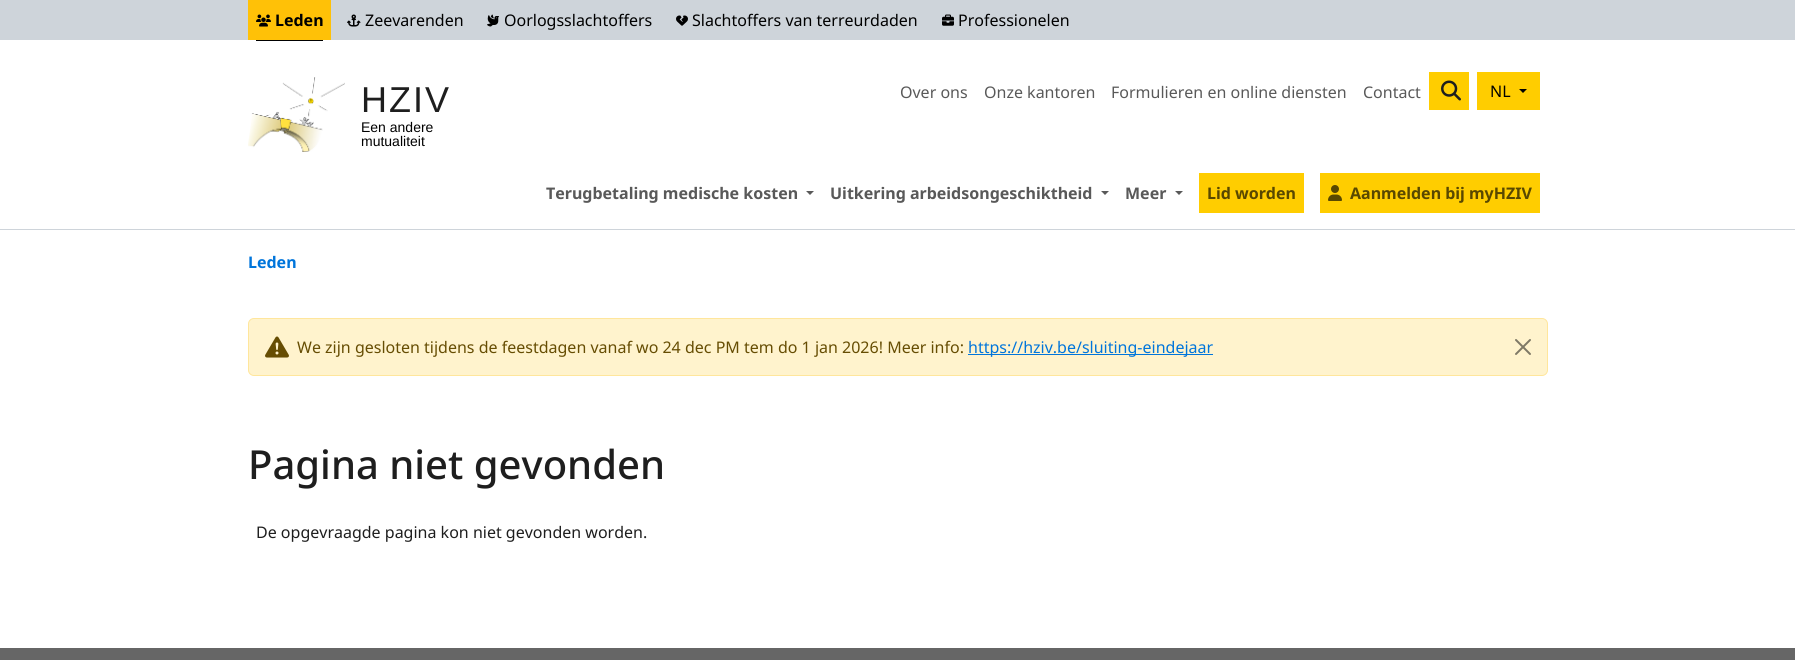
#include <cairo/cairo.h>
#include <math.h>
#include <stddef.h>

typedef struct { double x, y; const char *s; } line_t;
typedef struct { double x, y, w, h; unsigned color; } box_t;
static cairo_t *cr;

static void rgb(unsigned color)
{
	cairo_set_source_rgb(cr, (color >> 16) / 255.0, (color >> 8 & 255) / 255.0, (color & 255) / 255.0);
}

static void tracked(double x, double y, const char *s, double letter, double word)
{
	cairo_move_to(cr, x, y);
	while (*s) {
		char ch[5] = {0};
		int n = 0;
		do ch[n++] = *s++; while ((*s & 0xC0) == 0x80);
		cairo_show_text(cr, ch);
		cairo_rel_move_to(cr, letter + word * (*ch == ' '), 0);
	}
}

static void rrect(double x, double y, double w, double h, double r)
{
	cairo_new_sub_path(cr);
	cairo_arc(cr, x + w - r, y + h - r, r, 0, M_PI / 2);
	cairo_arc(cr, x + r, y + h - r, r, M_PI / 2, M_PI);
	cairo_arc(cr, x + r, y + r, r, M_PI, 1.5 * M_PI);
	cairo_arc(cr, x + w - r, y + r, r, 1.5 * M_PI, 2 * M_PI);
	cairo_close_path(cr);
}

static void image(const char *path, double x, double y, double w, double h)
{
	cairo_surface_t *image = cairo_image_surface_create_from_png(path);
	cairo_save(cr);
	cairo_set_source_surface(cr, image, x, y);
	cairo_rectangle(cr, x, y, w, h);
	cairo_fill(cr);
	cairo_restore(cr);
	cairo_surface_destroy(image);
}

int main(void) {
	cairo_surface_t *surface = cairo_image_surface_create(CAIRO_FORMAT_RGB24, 1795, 660);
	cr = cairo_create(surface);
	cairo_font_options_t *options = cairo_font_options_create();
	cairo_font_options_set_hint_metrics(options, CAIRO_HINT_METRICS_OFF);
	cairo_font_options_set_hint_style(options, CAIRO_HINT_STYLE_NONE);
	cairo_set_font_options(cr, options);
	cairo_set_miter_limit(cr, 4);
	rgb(0xffffff);
	cairo_paint(cr);
	{
		static const box_t items[] = {
			{0, 229, 1795, 1, 0xced4da},
			{0, 0, 1795, 40, 0xced4da},
			{248, 0, 83, 40, 0xffc107},
		};
		for (size_t i = 0; i < sizeof items / sizeof *items; i++) {
			rgb(items[i].color);
			cairo_rectangle(cr, items[i].x, items[i].y, items[i].w, items[i].h);
			cairo_fill(cr);
		}
	}
	image("img/1.png", 256, 14, 15, 13);
	rgb(0x000000);
	cairo_rectangle(cr, 256, 40, 67, 1);
	cairo_fill(cr);
	image("img/2.png", 347, 14, 14, 13);
	image("img/3.png", 487, 14, 12, 13);
	image("img/4.png", 676, 15, 12, 11);
	image("img/5.png", 942, 14, 12, 12);
	image("img/6.png", 248, 77, 97, 75);
	rgb(0xffcd00);
	cairo_rectangle(cr, 1429, 72, 40, 38);
	cairo_fill(cr);
	image("img/7.png", 1441, 80, 20, 21);
	cairo_rectangle(cr, 1477, 72, 63, 38);
	cairo_fill(cr);
	rgb(0x000000);
	cairo_new_path(cr);
	cairo_move_to(cr, 1519, 89);
	cairo_line_to(cr, 1527, 89);
	cairo_line_to(cr, 1523, 93);
	cairo_close_path(cr);
	cairo_fill(cr);
	rgb(0x595959);
	cairo_new_path(cr);
	cairo_move_to(cr, 806, 191);
	cairo_line_to(cr, 814, 191);
	cairo_line_to(cr, 810, 195);
	cairo_close_path(cr);
	cairo_fill(cr);
	cairo_new_path(cr);
	cairo_move_to(cr, 1101, 191);
	cairo_line_to(cr, 1109, 191);
	cairo_line_to(cr, 1105, 195);
	cairo_close_path(cr);
	cairo_fill(cr);
	cairo_new_path(cr);
	cairo_move_to(cr, 1175, 191);
	cairo_line_to(cr, 1183, 191);
	cairo_line_to(cr, 1179, 195);
	cairo_close_path(cr);
	cairo_fill(cr);
	rgb(0xffcd00);
	cairo_rectangle(cr, 1199, 173, 105, 40);
	cairo_fill(cr);
	cairo_rectangle(cr, 1320, 173, 220, 40);
	cairo_fill(cr);
	image("img/8.png", 1328, 185, 14, 16);
	rgb(0xfff3cd);
	rrect(248.5, 318.5, 1299, 57, 5.5);
	cairo_fill_preserve(cr);
	rgb(0xffe69c);
	cairo_set_line_width(cr, 1);
	cairo_stroke(cr);
	image("img/9.png", 265, 336, 24, 22);
	rgb(0x0075db);
	cairo_rectangle(cr, 968, 354, 245, 1);
	cairo_fill(cr);
	image("img/10.png", 1515, 339, 16, 16);
	rgb(0x666666);
	cairo_rectangle(cr, 0, 648, 1795, 12);
	cairo_fill(cr);
	cairo_select_font_face(cr, "Noto Sans", CAIRO_FONT_SLANT_NORMAL, CAIRO_FONT_WEIGHT_BOLD);
	cairo_set_font_size(cr, 16);
	rgb(0x000000);
	cairo_move_to(cr, 275, 26);
	cairo_show_text(cr, "Leden");
	cairo_select_font_face(cr, "Noto Sans", CAIRO_FONT_SLANT_NORMAL, CAIRO_FONT_WEIGHT_NORMAL);
	{
		static const line_t items[] = {
			{365, 26, "Zeevarenden"},
			{504, 26, "Oorlogsslachtoffers"},
			{692, 26, "Slachtoffers van terreurdaden"},
			{958, 26, "Professionelen"},
		};
		for (size_t i = 0; i < sizeof items / sizeof *items; i++) {
			cairo_move_to(cr, items[i].x, items[i].y);
			cairo_show_text(cr, items[i].s);
		}
	}
	cairo_select_font_face(cr, "Liberation Sans", CAIRO_FONT_SLANT_NORMAL, CAIRO_FONT_WEIGHT_NORMAL);
	cairo_set_font_size(cr, 36);
	rgb(0x1e1e1e);
	tracked(361, 112, "HZIV", 2, 0);
	cairo_set_font_size(cr, 14);
	rgb(0x000000);
	cairo_move_to(cr, 361, 132);
	cairo_show_text(cr, "Een andere");
	cairo_move_to(cr, 361, 146);
	cairo_show_text(cr, "mutualiteit");
	cairo_select_font_face(cr, "Noto Sans", CAIRO_FONT_SLANT_NORMAL, CAIRO_FONT_WEIGHT_NORMAL);
	cairo_set_font_size(cr, 16);
	rgb(0x595959);
	{
		static const line_t items[] = {
			{900, 98, "Over ons"},
			{984, 98, "Onze kantoren"},
			{1111, 98, "Formulieren en online diensten"},
			{1363, 98, "Contact"},
		};
		for (size_t i = 0; i < sizeof items / sizeof *items; i++) {
			cairo_move_to(cr, items[i].x, items[i].y);
			cairo_show_text(cr, items[i].s);
		}
	}
	rgb(0x000000);
	cairo_move_to(cr, 1490, 97);
	cairo_show_text(cr, "NL");
	cairo_select_font_face(cr, "Noto Sans", CAIRO_FONT_SLANT_NORMAL, CAIRO_FONT_WEIGHT_BOLD);
	rgb(0x595959);
	{
		static const line_t items[] = {
			{546, 199, "Terugbetaling medische kosten"},
			{830, 199, "Uitkering arbeidsongeschiktheid"},
			{1125, 199, "Meer"},
		};
		for (size_t i = 0; i < sizeof items / sizeof *items; i++) {
			cairo_move_to(cr, items[i].x, items[i].y);
			cairo_show_text(cr, items[i].s);
		}
	}
	rgb(0x594800);
	cairo_move_to(cr, 1207, 199);
	cairo_show_text(cr, "Lid worden");
	cairo_move_to(cr, 1350, 199);
	cairo_show_text(cr, "Aanmelden bij myHZIV");
	rgb(0x0075db);
	cairo_move_to(cr, 248, 268);
	cairo_show_text(cr, "Leden");
	cairo_select_font_face(cr, "Noto Sans", CAIRO_FONT_SLANT_NORMAL, CAIRO_FONT_WEIGHT_NORMAL);
	rgb(0x664d03);
	cairo_move_to(cr, 297, 353);
	cairo_show_text(cr, "We zijn gesloten tijdens de feestdagen vanaf wo 24 dec PM tem do 1 jan 2026! Meer info:");
	rgb(0x0075db);
	cairo_move_to(cr, 968, 353);
	cairo_show_text(cr, "https://hziv.be/sluiting-eindejaar");
	cairo_select_font_face(cr, "Noto Sans Medium", CAIRO_FONT_SLANT_NORMAL, CAIRO_FONT_WEIGHT_NORMAL);
	cairo_set_font_size(cr, 40);
	rgb(0x1e1e1e);
	cairo_move_to(cr, 248, 479);
	cairo_show_text(cr, "Pagina niet gevonden");
	cairo_select_font_face(cr, "Noto Sans", CAIRO_FONT_SLANT_NORMAL, CAIRO_FONT_WEIGHT_NORMAL);
	cairo_set_font_size(cr, 16);
	cairo_move_to(cr, 256, 538);
	cairo_show_text(cr, "De opgevraagde pagina kon niet gevonden worden.");
	cairo_surface_write_to_png(surface, "page.png");
	cairo_font_options_destroy(options);
	cairo_destroy(cr);
	cairo_surface_destroy(surface);
	return 0;
}
